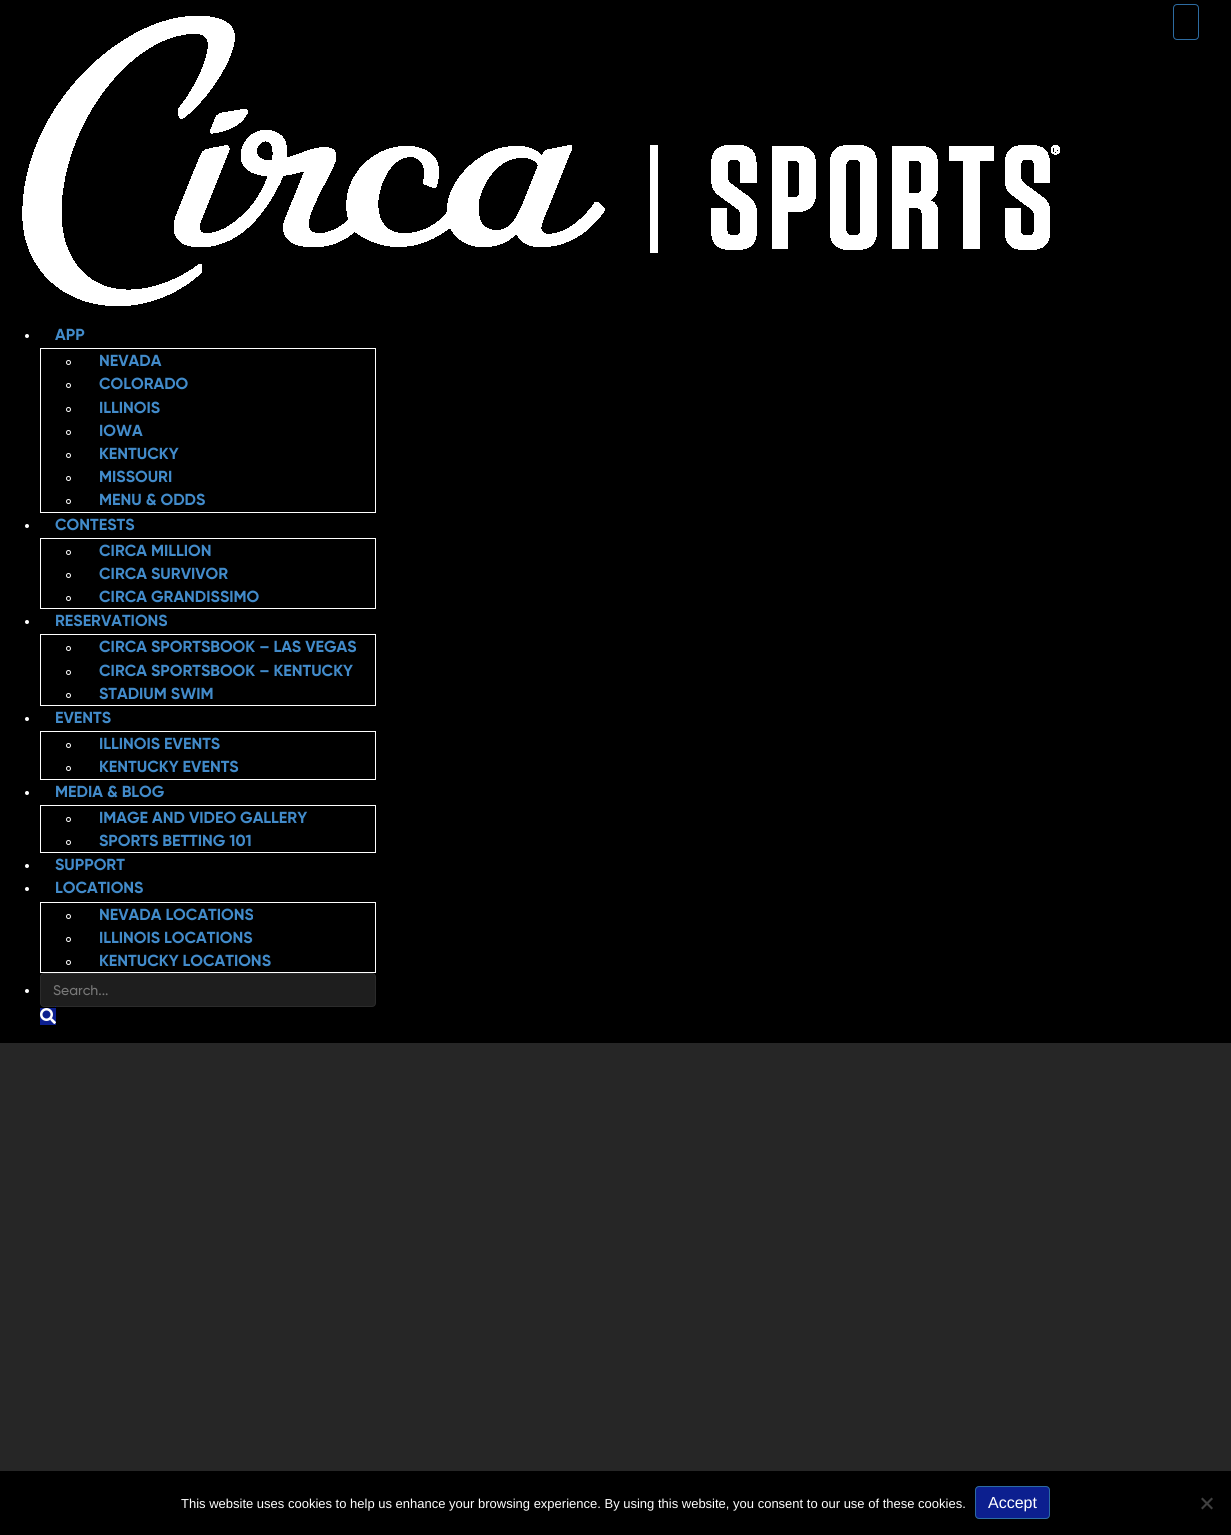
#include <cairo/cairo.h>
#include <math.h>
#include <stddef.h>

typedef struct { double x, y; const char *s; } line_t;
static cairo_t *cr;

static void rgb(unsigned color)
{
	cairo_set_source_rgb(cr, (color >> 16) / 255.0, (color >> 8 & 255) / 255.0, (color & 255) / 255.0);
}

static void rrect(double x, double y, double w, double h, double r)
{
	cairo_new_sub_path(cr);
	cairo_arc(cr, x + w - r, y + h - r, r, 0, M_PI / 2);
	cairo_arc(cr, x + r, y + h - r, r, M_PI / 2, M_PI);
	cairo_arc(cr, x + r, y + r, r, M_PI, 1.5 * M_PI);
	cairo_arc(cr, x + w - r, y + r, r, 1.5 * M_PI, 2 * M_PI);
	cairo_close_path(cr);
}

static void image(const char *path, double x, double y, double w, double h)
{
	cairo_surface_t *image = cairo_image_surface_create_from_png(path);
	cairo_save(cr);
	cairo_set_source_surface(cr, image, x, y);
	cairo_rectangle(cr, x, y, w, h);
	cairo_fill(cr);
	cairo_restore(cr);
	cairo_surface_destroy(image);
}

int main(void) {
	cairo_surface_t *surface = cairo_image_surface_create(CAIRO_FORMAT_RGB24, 1231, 1535);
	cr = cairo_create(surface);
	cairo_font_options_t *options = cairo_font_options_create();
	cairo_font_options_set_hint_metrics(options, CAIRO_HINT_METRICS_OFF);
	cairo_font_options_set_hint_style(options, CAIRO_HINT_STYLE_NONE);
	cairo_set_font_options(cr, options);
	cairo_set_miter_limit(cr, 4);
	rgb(0x262626);
	cairo_paint(cr);
	rgb(0x000000);
	cairo_rectangle(cr, 0, 0, 1231, 1043);
	cairo_fill(cr);
	image("img/1.png", 22, 16, 1038, 290);
	rrect(1173.5, 4.5, 25, 35, 3.5);
	rgb(0x2d6ca2);
	cairo_set_line_width(cr, 1);
	cairo_stroke(cr);
	rgb(0xffffff);
	cairo_arc(cr, 27, 336, 2, 0, 2 * M_PI);
	cairo_fill(cr);
	cairo_rectangle(cr, 40.5, 348.5, 335, 164);
	cairo_stroke(cr);
	cairo_arc(cr, 68.5, 362.5, 2, 0, 2 * M_PI);
	cairo_stroke(cr);
	cairo_arc(cr, 68.5, 385.5, 2, 0, 2 * M_PI);
	cairo_stroke(cr);
	cairo_arc(cr, 68.5, 409.5, 2, 0, 2 * M_PI);
	cairo_stroke(cr);
	cairo_arc(cr, 68.5, 432.5, 2, 0, 2 * M_PI);
	cairo_stroke(cr);
	cairo_arc(cr, 68.5, 455.5, 2, 0, 2 * M_PI);
	cairo_stroke(cr);
	cairo_arc(cr, 68.5, 478.5, 2, 0, 2 * M_PI);
	cairo_stroke(cr);
	cairo_arc(cr, 68.5, 501.5, 2, 0, 2 * M_PI);
	cairo_stroke(cr);
	cairo_arc(cr, 27, 526, 2, 0, 2 * M_PI);
	cairo_fill(cr);
	cairo_rectangle(cr, 40.5, 538.5, 335, 70);
	cairo_stroke(cr);
	cairo_arc(cr, 68.5, 552.5, 2, 0, 2 * M_PI);
	cairo_stroke(cr);
	cairo_arc(cr, 68.5, 575.5, 2, 0, 2 * M_PI);
	cairo_stroke(cr);
	cairo_arc(cr, 68.5, 598.5, 2, 0, 2 * M_PI);
	cairo_stroke(cr);
	cairo_arc(cr, 27, 622, 2, 0, 2 * M_PI);
	cairo_fill(cr);
	cairo_rectangle(cr, 40.5, 634.5, 335, 71);
	cairo_stroke(cr);
	cairo_arc(cr, 68.5, 648.5, 2, 0, 2 * M_PI);
	cairo_stroke(cr);
	cairo_arc(cr, 68.5, 672.5, 2, 0, 2 * M_PI);
	cairo_stroke(cr);
	cairo_arc(cr, 68.5, 695.5, 2, 0, 2 * M_PI);
	cairo_stroke(cr);
	cairo_arc(cr, 27, 719, 2, 0, 2 * M_PI);
	cairo_fill(cr);
	cairo_rectangle(cr, 40.5, 731.5, 335, 48);
	cairo_stroke(cr);
	cairo_arc(cr, 68.5, 745.5, 2, 0, 2 * M_PI);
	cairo_stroke(cr);
	cairo_arc(cr, 68.5, 768.5, 2, 0, 2 * M_PI);
	cairo_stroke(cr);
	cairo_arc(cr, 27, 793, 2, 0, 2 * M_PI);
	cairo_fill(cr);
	cairo_rectangle(cr, 40.5, 805.5, 335, 47);
	cairo_stroke(cr);
	cairo_arc(cr, 68.5, 819.5, 2, 0, 2 * M_PI);
	cairo_stroke(cr);
	cairo_arc(cr, 68.5, 842.5, 2, 0, 2 * M_PI);
	cairo_stroke(cr);
	cairo_arc(cr, 27, 866, 2, 0, 2 * M_PI);
	cairo_fill(cr);
	cairo_arc(cr, 27, 889, 2, 0, 2 * M_PI);
	cairo_fill(cr);
	cairo_rectangle(cr, 40.5, 902.5, 335, 70);
	cairo_stroke(cr);
	cairo_arc(cr, 68.5, 916.5, 2, 0, 2 * M_PI);
	cairo_stroke(cr);
	cairo_arc(cr, 68.5, 939.5, 2, 0, 2 * M_PI);
	cairo_stroke(cr);
	cairo_arc(cr, 68.5, 962.5, 2, 0, 2 * M_PI);
	cairo_stroke(cr);
	cairo_arc(cr, 27, 991, 2, 0, 2 * M_PI);
	cairo_fill(cr);
	rgb(0x1e1e1e);
	rrect(40.5, 973.5, 335, 33, 3.5);
	cairo_fill_preserve(cr);
	rgb(0x2b2b2b);
	cairo_stroke(cr);
	rgb(0x0c1f8f);
	cairo_rectangle(cr, 40, 1008, 16, 17);
	cairo_fill(cr);
	cairo_rectangle(cr, 55, 1006, 1, 1);
	cairo_fill(cr);
	image("img/2.png", 40, 1008, 16, 16);
	rgb(0x000000);
	cairo_rectangle(cr, 0, 1471, 1231, 64);
	cairo_fill(cr);
	rgb(0x0c1f8f);
	rrect(975.5, 1486.5, 74, 32, 3.5);
	cairo_fill_preserve(cr);
	rgb(0x2d6ca2);
	cairo_stroke(cr);
	rgb(0x404040);
	cairo_new_path(cr);
	cairo_move_to(cr, 1211.5, 1497.5);
	cairo_line_to(cr, 1213, 1499);
	cairo_line_to(cr, 1202.5, 1509.5);
	cairo_line_to(cr, 1201, 1508);
	cairo_close_path(cr);
	cairo_fill(cr);
	cairo_new_path(cr);
	cairo_move_to(cr, 1201, 1499);
	cairo_line_to(cr, 1202.5, 1497.5);
	cairo_line_to(cr, 1213, 1508);
	cairo_line_to(cr, 1211.5, 1509.5);
	cairo_close_path(cr);
	cairo_fill(cr);
	cairo_select_font_face(cr, "Gilroy", CAIRO_FONT_SLANT_NORMAL, CAIRO_FONT_WEIGHT_BOLD);
	cairo_set_font_size(cr, 16);
	rgb(0x428bca);
	{
		static const line_t items[] = {
			{55, 340, "APP"},
			{99, 366, "NEVADA"},
			{99, 389, "COLORADO"},
			{99, 413, "ILLINOIS"},
			{99, 436, "IOWA"},
			{99, 459, "KENTUCKY"},
			{99, 482, "MISSOURI"},
			{99, 505, "MENU & ODDS"},
			{55, 530, "CONTESTS"},
			{99, 556, "CIRCA MILLION"},
			{99, 579, "CIRCA SURVIVOR"},
			{99, 602, "CIRCA GRANDISSIMO"},
			{55, 626, "RESERVATIONS"},
			{99, 652, "CIRCA SPORTSBOOK – LAS VEGAS"},
			{99, 676, "CIRCA SPORTSBOOK – KENTUCKY"},
			{99, 699, "STADIUM SWIM"},
			{55, 723, "EVENTS"},
			{99, 749, "ILLINOIS EVENTS"},
			{99, 772, "KENTUCKY EVENTS"},
			{55, 797, "MEDIA & BLOG"},
			{99, 823, "IMAGE AND VIDEO GALLERY"},
			{99, 846, "SPORTS BETTING 101"},
			{55, 870, "SUPPORT"},
			{55, 893, "LOCATIONS"},
			{99, 920, "NEVADA LOCATIONS"},
			{99, 943, "ILLINOIS LOCATIONS"},
			{99, 966, "KENTUCKY LOCATIONS"},
		};
		for (size_t i = 0; i < sizeof items / sizeof *items; i++) {
			cairo_move_to(cr, items[i].x, items[i].y);
			cairo_show_text(cr, items[i].s);
		}
	}
	cairo_select_font_face(cr, "Gilroy Medium", CAIRO_FONT_SLANT_NORMAL, CAIRO_FONT_WEIGHT_NORMAL);
	cairo_set_font_size(cr, 14);
	rgb(0x787878);
	cairo_move_to(cr, 53, 995);
	cairo_show_text(cr, "Search...");
	cairo_select_font_face(cr, "Liberation Sans", CAIRO_FONT_SLANT_NORMAL, CAIRO_FONT_WEIGHT_NORMAL);
	cairo_set_font_size(cr, 13);
	rgb(0xffffff);
	cairo_move_to(cr, 181, 1508);
	cairo_show_text(cr, "This website uses cookies to help us enhance your browsing experience. By using this website, you consent to our use of these cookies.");
	cairo_set_font_size(cr, 16);
	cairo_move_to(cr, 988, 1508);
	cairo_show_text(cr, "Accept");
	cairo_surface_write_to_png(surface, "page.png");
	cairo_font_options_destroy(options);
	cairo_destroy(cr);
	cairo_surface_destroy(surface);
	return 0;
}
